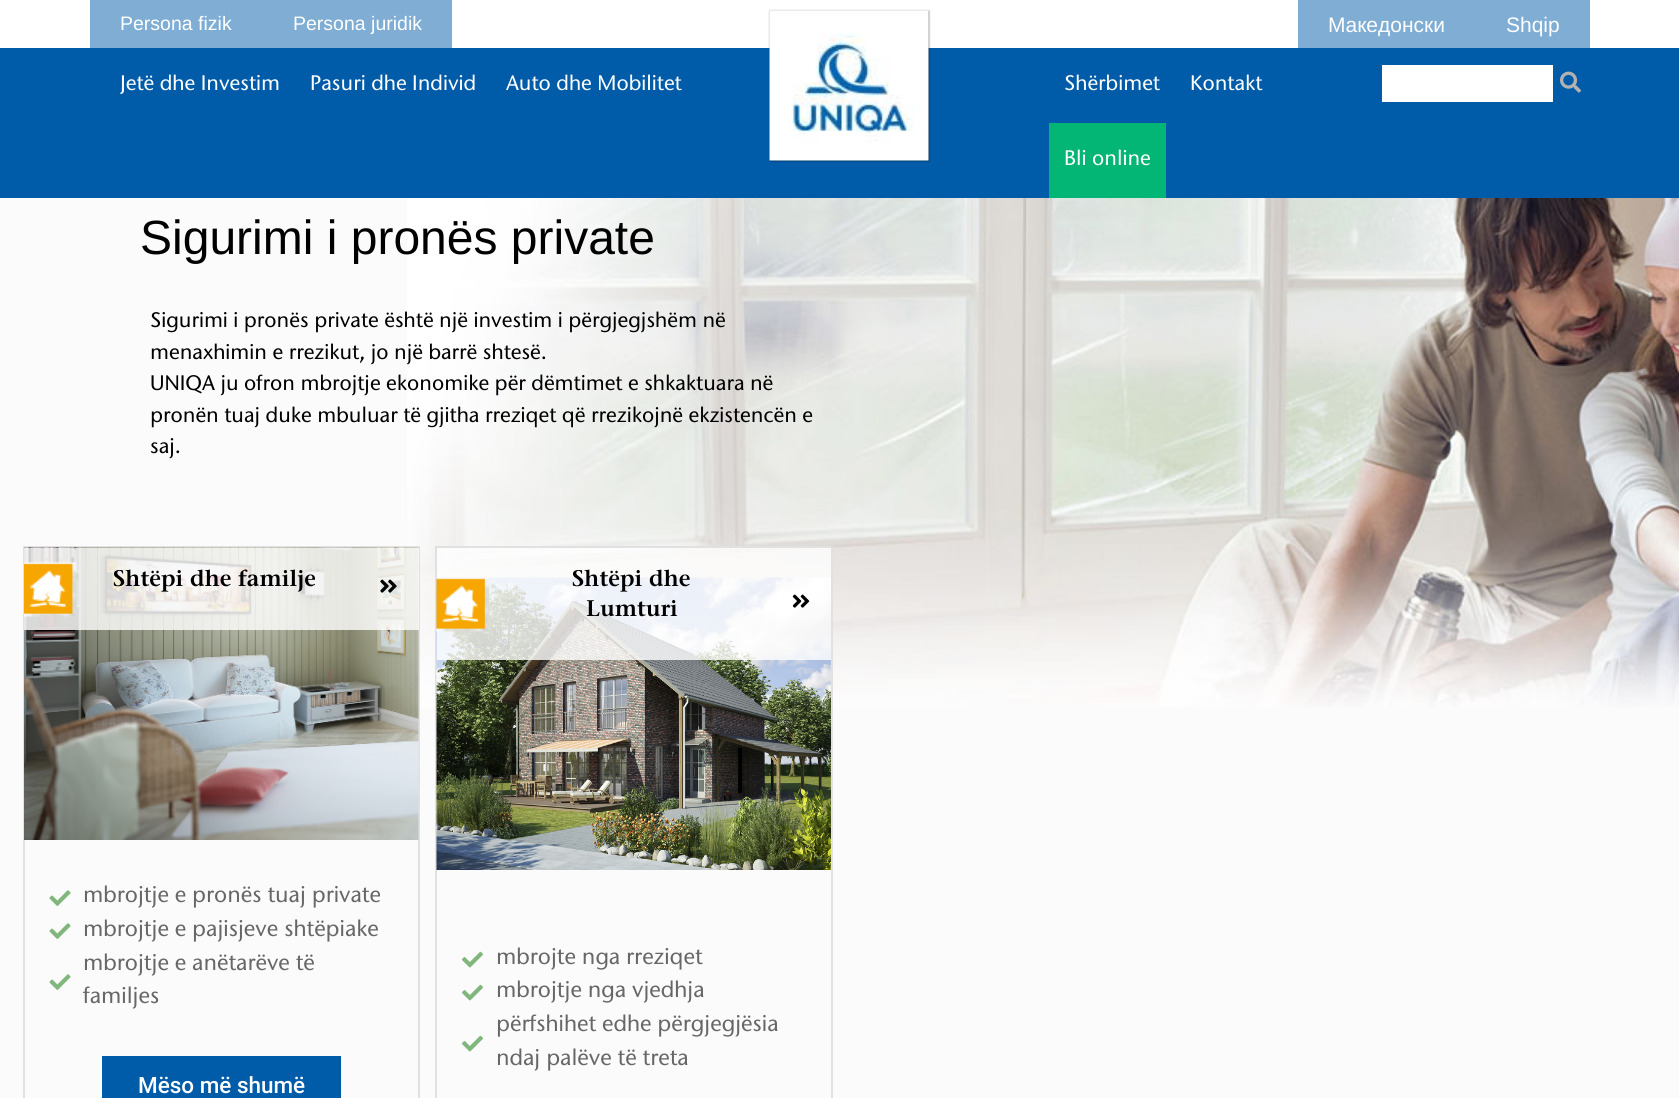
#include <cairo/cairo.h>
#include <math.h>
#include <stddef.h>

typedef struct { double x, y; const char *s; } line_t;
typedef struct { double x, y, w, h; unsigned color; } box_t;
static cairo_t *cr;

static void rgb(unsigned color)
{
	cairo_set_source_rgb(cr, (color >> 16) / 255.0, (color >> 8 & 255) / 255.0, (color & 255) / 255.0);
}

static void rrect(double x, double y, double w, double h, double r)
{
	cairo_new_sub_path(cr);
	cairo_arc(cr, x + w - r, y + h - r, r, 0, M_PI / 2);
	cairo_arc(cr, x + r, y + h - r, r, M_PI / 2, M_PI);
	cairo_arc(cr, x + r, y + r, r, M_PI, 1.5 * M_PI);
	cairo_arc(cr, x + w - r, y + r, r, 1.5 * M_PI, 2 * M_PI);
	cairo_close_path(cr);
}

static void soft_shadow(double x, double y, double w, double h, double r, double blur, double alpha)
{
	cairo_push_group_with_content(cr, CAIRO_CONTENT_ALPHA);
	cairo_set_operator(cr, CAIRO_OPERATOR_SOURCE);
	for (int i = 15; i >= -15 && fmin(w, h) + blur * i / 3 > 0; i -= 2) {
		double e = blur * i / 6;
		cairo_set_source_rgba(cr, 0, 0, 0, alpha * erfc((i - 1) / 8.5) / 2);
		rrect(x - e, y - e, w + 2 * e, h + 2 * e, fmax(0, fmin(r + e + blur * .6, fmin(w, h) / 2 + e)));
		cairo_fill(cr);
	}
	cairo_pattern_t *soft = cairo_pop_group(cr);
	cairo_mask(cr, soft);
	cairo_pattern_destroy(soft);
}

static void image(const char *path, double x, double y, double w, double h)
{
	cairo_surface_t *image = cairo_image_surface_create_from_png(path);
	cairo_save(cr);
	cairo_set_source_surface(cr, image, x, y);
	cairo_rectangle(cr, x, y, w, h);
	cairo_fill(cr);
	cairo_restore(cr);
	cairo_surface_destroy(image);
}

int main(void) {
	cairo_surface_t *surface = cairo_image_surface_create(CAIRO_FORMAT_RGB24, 1679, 1098);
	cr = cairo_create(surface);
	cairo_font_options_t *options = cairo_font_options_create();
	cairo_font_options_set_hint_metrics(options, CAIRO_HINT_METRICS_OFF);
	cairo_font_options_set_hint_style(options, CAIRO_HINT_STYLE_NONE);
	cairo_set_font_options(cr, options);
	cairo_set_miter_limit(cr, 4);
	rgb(0xffffff);
	cairo_paint(cr);
	{
		static const box_t items[] = {
			{90, 0, 362, 48, 0x7fadd4},
			{1298, 0, 292, 48, 0x7fadd4},
			{0, 48, 1679, 150, 0x005ca9},
		};
		for (size_t i = 0; i < sizeof items / sizeof *items; i++) {
			rgb(items[i].color);
			cairo_rectangle(cr, items[i].x, items[i].y, items[i].w, items[i].h);
			cairo_fill(cr);
		}
	}
	rgb(0x000000);
	soft_shadow(770, 11, 159, 150, 0, 1, 0.5);
	image("img/1.png", 769, 10, 160, 151);
	rgb(0x04b675);
	cairo_rectangle(cr, 1049, 123, 117, 75);
	cairo_fill(cr);
	rgb(0xffffff);
	cairo_rectangle(cr, 1382, 65, 171, 37);
	cairo_fill(cr);
	image("img/2.png", 1560, 71, 21, 22);
	rgb(0xfbfbfb);
	cairo_rectangle(cr, 0, 198, 1679, 900);
	cairo_fill(cr);
	image("img/3.png", 407, 198, 1272, 509);
	cairo_rectangle(cr, 24, 547, 395, 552);
	rgb(0xe1e1e1);
	cairo_stroke(cr);
	image("img/4.png", 24, 547, 395, 293);
	cairo_set_source_rgba(cr, 1, 1, 1, 0.8);
	cairo_rectangle(cr, 24, 548, 395, 82);
	cairo_fill(cr);
	image("img/5.png", 24, 562, 53, 55);
	image("img/6.png", 380, 579, 17, 14);
	image("img/7.png", 49, 890, 22, 16);
	image("img/7.png", 49, 923, 22, 16);
	image("img/7.png", 49, 974, 22, 16);
	rgb(0x005ca9);
	cairo_rectangle(cr, 102, 1056, 239, 42);
	cairo_fill(cr);
	cairo_rectangle(cr, 436, 547, 396, 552);
	rgb(0xe1e1e1);
	cairo_stroke(cr);
	image("img/10.png", 436, 577, 395, 293);
	cairo_set_source_rgba(cr, 1, 1, 1, 0.8);
	cairo_rectangle(cr, 437, 548, 394, 112);
	cairo_fill(cr);
	image("img/8.png", 436, 577, 53, 55);
	image("img/9.png", 792, 594, 18, 14);
	image("img/11.png", 462, 951, 21, 17);
	image("img/11.png", 462, 984, 21, 17);
	image("img/11.png", 462, 1035, 21, 17);
	cairo_select_font_face(cr, "Liberation Sans", CAIRO_FONT_SLANT_NORMAL, CAIRO_FONT_WEIGHT_NORMAL);
	cairo_set_font_size(cr, 19.5);
	rgb(0xffffff);
	cairo_move_to(cr, 120, 30);
	cairo_show_text(cr, "Persona fizik");
	cairo_move_to(cr, 293, 30);
	cairo_show_text(cr, "Persona juridik");
	cairo_set_font_size(cr, 21);
	cairo_move_to(cr, 1328, 32);
	cairo_show_text(cr, "Македонски");
	cairo_move_to(cr, 1506, 32);
	cairo_show_text(cr, "Shqip");
	cairo_select_font_face(cr, "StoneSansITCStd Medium", CAIRO_FONT_SLANT_NORMAL, CAIRO_FONT_WEIGHT_NORMAL);
	{
		static const line_t items[] = {
			{120, 90, "Jetë dhe Investim"},
			{310, 90, "Pasuri dhe Individ"},
			{506, 90, "Auto dhe Mobilitet"},
			{1064, 90, "Shërbimet"},
			{1190, 90, "Kontakt"},
			{1064, 165, "Bli online"},
		};
		for (size_t i = 0; i < sizeof items / sizeof *items; i++) {
			cairo_move_to(cr, items[i].x, items[i].y);
			cairo_show_text(cr, items[i].s);
		}
	}
	cairo_select_font_face(cr, "Liberation Sans", CAIRO_FONT_SLANT_NORMAL, CAIRO_FONT_WEIGHT_NORMAL);
	cairo_set_font_size(cr, 48);
	rgb(0x000000);
	cairo_move_to(cr, 140, 254);
	cairo_show_text(cr, "Sigurimi i pronës private");
	cairo_select_font_face(cr, "StoneSansITCStd Medium", CAIRO_FONT_SLANT_NORMAL, CAIRO_FONT_WEIGHT_NORMAL);
	cairo_set_font_size(cr, 21);
	{
		static const line_t items[] = {
			{150, 327, "Sigurimi i pronës private është një investim i përgjegjshëm në"},
			{150, 359, "menaxhimin e rrezikut, jo një barrë shtesë."},
			{150, 390, "UNIQA ju ofron mbrojtje ekonomike për dëmtimet e shkaktuara në"},
			{150, 422, "pronën tuaj duke mbuluar të gjitha rreziqet që rrezikojnë ekzistencën e"},
			{150, 453, "saj."},
		};
		for (size_t i = 0; i < sizeof items / sizeof *items; i++) {
			cairo_move_to(cr, items[i].x, items[i].y);
			cairo_show_text(cr, items[i].s);
		}
	}
	cairo_select_font_face(cr, "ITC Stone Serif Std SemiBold", CAIRO_FONT_SLANT_NORMAL, CAIRO_FONT_WEIGHT_NORMAL);
	cairo_set_font_size(cr, 22.5);
	cairo_move_to(cr, 113, 586);
	cairo_show_text(cr, "Shtëpi dhe familje");
	cairo_select_font_face(cr, "StoneSansITCStd Medium", CAIRO_FONT_SLANT_NORMAL, CAIRO_FONT_WEIGHT_NORMAL);
	rgb(0x676767);
	{
		static const line_t items[] = {
			{83, 902, "mbrojtje e pronës tuaj private"},
			{83, 936, "mbrojtje e pajisjeve shtëpiake"},
			{83, 970, "mbrojtje e anëtarëve të"},
			{83, 1003, "familjes"},
		};
		for (size_t i = 0; i < sizeof items / sizeof *items; i++) {
			cairo_move_to(cr, items[i].x, items[i].y);
			cairo_show_text(cr, items[i].s);
		}
	}
	cairo_select_font_face(cr, "Roboto Medium", CAIRO_FONT_SLANT_NORMAL, CAIRO_FONT_WEIGHT_NORMAL);
	rgb(0xffffff);
	cairo_move_to(cr, 138, 1093);
	cairo_show_text(cr, "Mëso më shumë");
	cairo_select_font_face(cr, "ITC Stone Serif Std SemiBold", CAIRO_FONT_SLANT_NORMAL, CAIRO_FONT_WEIGHT_NORMAL);
	rgb(0x000000);
	cairo_move_to(cr, 572, 586);
	cairo_show_text(cr, "Shtëpi dhe");
	cairo_move_to(cr, 586, 616);
	cairo_show_text(cr, "Lumturi");
	cairo_select_font_face(cr, "StoneSansITCStd Medium", CAIRO_FONT_SLANT_NORMAL, CAIRO_FONT_WEIGHT_NORMAL);
	rgb(0x676767);
	{
		static const line_t items[] = {
			{496, 964, "mbrojte nga rreziqet"},
			{496, 997, "mbrojtje nga vjedhja"},
			{496, 1031, "përfshihet edhe përgjegjësia"},
			{496, 1065, "ndaj palëve të treta"},
		};
		for (size_t i = 0; i < sizeof items / sizeof *items; i++) {
			cairo_move_to(cr, items[i].x, items[i].y);
			cairo_show_text(cr, items[i].s);
		}
	}
	cairo_surface_write_to_png(surface, "page.png");
	cairo_font_options_destroy(options);
	cairo_destroy(cr);
	cairo_surface_destroy(surface);
	return 0;
}
